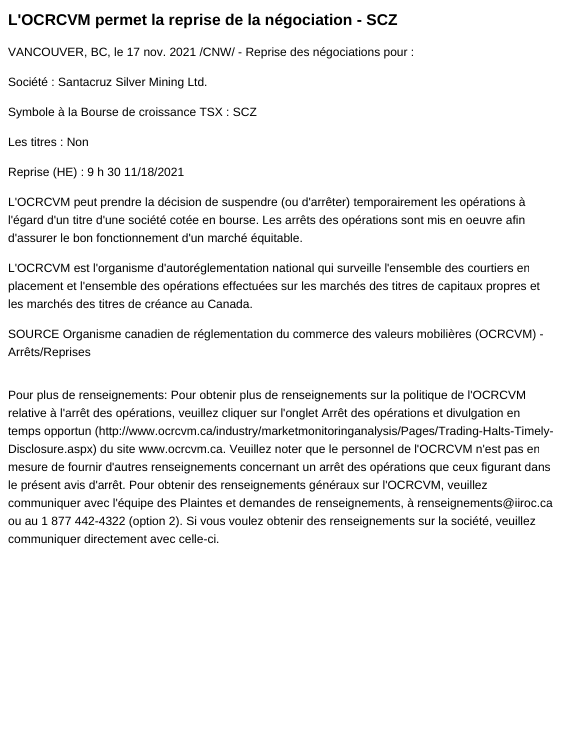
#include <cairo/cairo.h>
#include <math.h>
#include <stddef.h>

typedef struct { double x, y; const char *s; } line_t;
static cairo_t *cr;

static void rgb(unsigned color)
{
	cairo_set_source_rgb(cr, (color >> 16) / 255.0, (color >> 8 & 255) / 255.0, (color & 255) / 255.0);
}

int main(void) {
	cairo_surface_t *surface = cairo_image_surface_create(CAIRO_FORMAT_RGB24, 564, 744);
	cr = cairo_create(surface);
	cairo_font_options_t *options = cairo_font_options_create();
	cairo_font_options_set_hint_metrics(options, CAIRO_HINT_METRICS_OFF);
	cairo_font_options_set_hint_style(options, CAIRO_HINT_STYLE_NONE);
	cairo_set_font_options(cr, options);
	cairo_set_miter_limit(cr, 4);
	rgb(0xffffff);
	cairo_paint(cr);
	cairo_select_font_face(cr, "Liberation Sans", CAIRO_FONT_SLANT_NORMAL, CAIRO_FONT_WEIGHT_BOLD);
	cairo_set_font_size(cr, 15.6);
	rgb(0x000000);
	cairo_move_to(cr, 8, 25);
	cairo_show_text(cr, "L'OCRCVM permet la reprise de la négociation - SCZ");
	cairo_select_font_face(cr, "Liberation Sans", CAIRO_FONT_SLANT_NORMAL, CAIRO_FONT_WEIGHT_NORMAL);
	cairo_set_font_size(cr, 12);
	{
		static const line_t items[] = {
			{8, 56, "VANCOUVER, BC, le 17 nov. 2021 /CNW/ - Reprise des négociations pour :"},
			{8, 86, "Société : Santacruz Silver Mining Ltd."},
			{8, 116, "Symbole à la Bourse de croissance TSX : SCZ"},
			{8, 146, "Les titres : Non"},
			{8, 176, "Reprise (HE) : 9 h 30 11/18/2021"},
			{8, 206, "L'OCRCVM peut prendre la décision de suspendre (ou d'arrêter) temporairement les opérations à"},
			{8, 224, "l'égard d'un titre d'une société cotée en bourse. Les arrêts des opérations sont mis en oeuvre afin"},
			{8, 242, "d'assurer le bon fonctionnement d'un marché équitable."},
			{8, 272, "L'OCRCVM est l'organisme d'autoréglementation national qui surveille l'ensemble des courtiers en"},
			{8, 290, "placement et l'ensemble des opérations effectuées sur les marchés des titres de capitaux propres et"},
			{8, 308, "les marchés des titres de créance au Canada."},
			{8, 338, "SOURCE Organisme canadien de réglementation du commerce des valeurs mobilières (OCRCVM) -"},
			{8, 356, "Arrêts/Reprises"},
			{8, 399, "Pour plus de renseignements: Pour obtenir plus de renseignements sur la politique de l'OCRCVM"},
			{8, 417, "relative à l'arrêt des opérations, veuillez cliquer sur l'onglet Arrêt des opérations et divulgation en"},
			{8, 435, "temps opportun (http://www.ocrcvm.ca/industry/marketmonitoringanalysis/Pages/Trading-Halts-Timely-"},
			{8, 453, "Disclosure.aspx) du site www.ocrcvm.ca. Veuillez noter que le personnel de l'OCRCVM n'est pas en"},
			{8, 471, "mesure de fournir d'autres renseignements concernant un arrêt des opérations que ceux figurant dans"},
			{8, 489, "le présent avis d'arrêt. Pour obtenir des renseignements généraux sur l'OCRCVM, veuillez"},
			{8, 507, "communiquer avec l'équipe des Plaintes et demandes de renseignements, à renseignements@iiroc.ca"},
			{8, 525, "ou au 1 877 442-4322 (option 2). Si vous voulez obtenir des renseignements sur la société, veuillez"},
			{8, 543, "communiquer directement avec celle-ci."},
		};
		for (size_t i = 0; i < sizeof items / sizeof *items; i++) {
			cairo_move_to(cr, items[i].x, items[i].y);
			cairo_show_text(cr, items[i].s);
		}
	}
	cairo_surface_write_to_png(surface, "page.png");
	cairo_font_options_destroy(options);
	cairo_destroy(cr);
	cairo_surface_destroy(surface);
	return 0;
}
